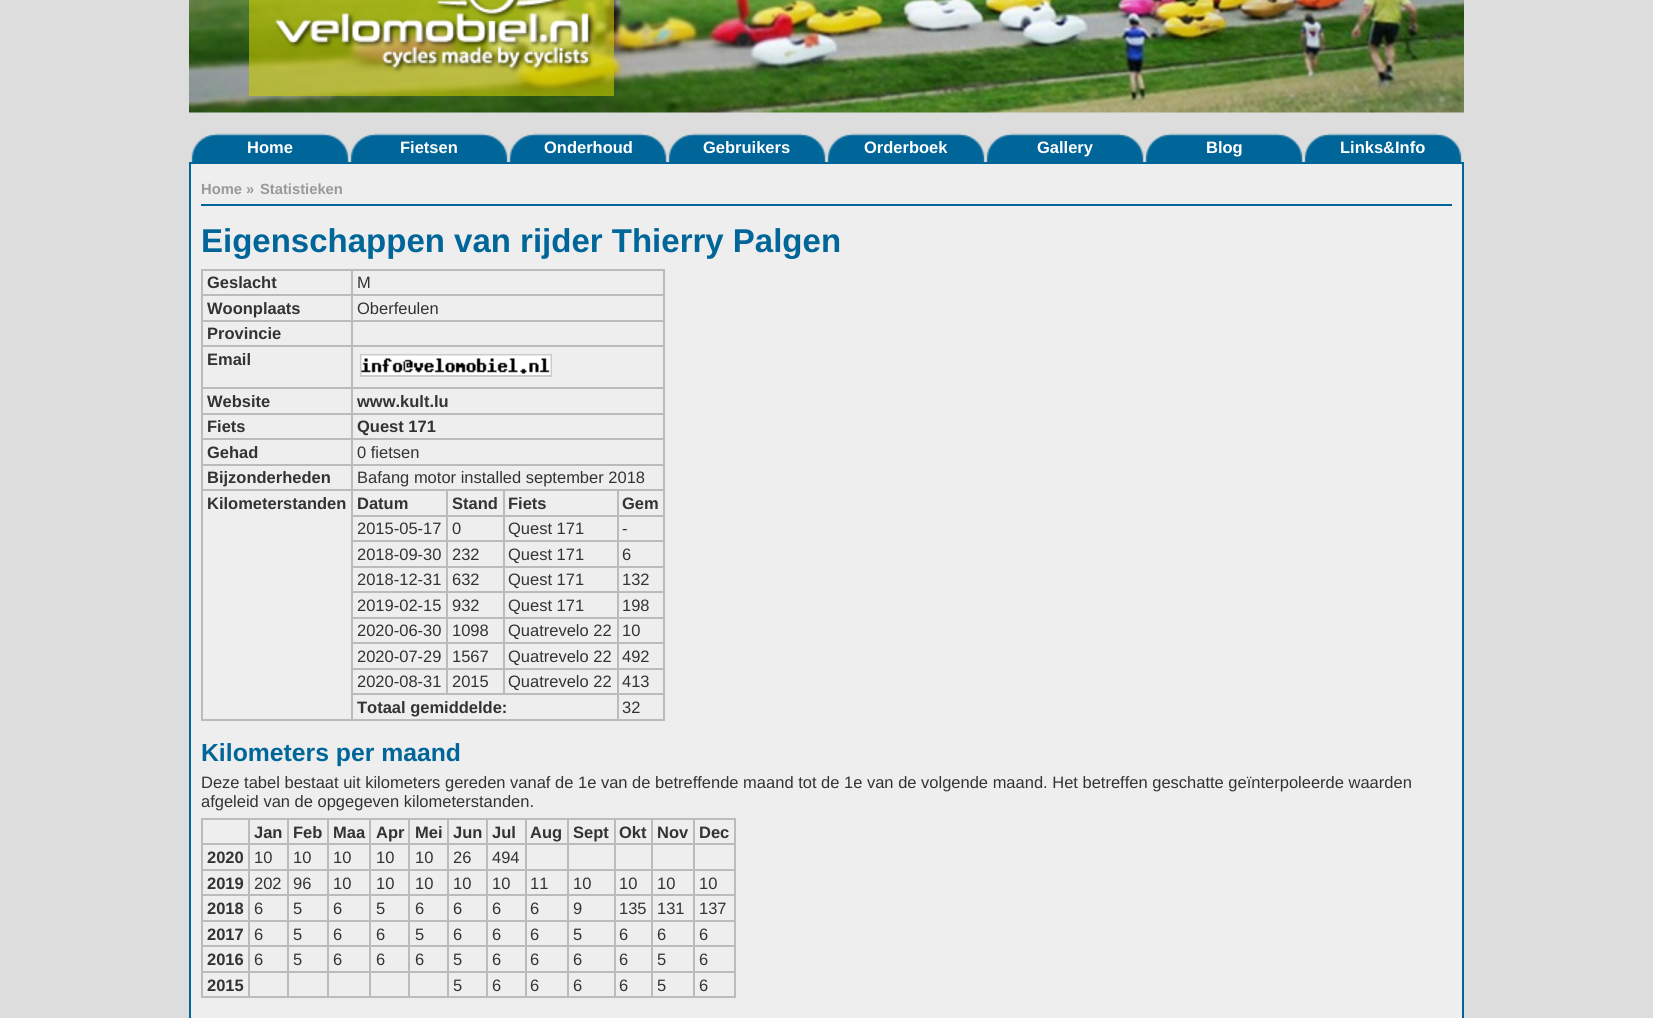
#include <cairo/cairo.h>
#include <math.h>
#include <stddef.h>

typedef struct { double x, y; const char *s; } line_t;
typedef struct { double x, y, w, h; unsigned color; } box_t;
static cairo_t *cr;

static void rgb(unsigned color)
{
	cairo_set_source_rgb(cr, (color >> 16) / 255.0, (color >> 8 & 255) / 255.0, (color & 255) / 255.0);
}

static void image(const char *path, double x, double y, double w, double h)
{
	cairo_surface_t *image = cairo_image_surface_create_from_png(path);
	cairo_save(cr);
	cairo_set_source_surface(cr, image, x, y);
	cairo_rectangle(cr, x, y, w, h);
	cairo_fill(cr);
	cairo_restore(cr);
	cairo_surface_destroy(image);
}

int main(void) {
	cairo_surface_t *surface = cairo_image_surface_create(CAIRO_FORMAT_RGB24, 1653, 1018);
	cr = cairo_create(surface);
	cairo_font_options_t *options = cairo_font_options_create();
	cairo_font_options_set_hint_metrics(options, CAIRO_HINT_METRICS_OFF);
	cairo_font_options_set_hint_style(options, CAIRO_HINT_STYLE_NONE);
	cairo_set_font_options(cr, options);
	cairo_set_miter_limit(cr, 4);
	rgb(0xdddddd);
	cairo_paint(cr);
	image("img/1.png", 189, 0, 1275, 113);
	cairo_set_source_rgba(cr, 0.8, 0.8, 0, 0.6);
	cairo_rectangle(cr, 249, 0, 365, 96);
	cairo_fill(cr);
	image("img/2.png", 274, 0, 320, 73);
	image("img/3.png", 191, 133, 158, 29);
	image("img/4.png", 350, 133, 158, 29);
	image("img/3.png", 509, 133, 158, 29);
	image("img/5.png", 668, 133, 158, 29);
	image("img/3.png", 827, 133, 158, 29);
	image("img/3.png", 986, 133, 158, 29);
	image("img/6.png", 1145, 133, 158, 29);
	image("img/6.png", 1304, 133, 158, 29);
	rgb(0xeeeeee);
	cairo_rectangle(cr, 190, 163, 1273, 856);
	cairo_fill_preserve(cr);
	rgb(0x006699);
	cairo_stroke(cr);
	{
		static const box_t items[] = {
			{201, 204, 1251, 2, 0x006699},
			{201, 269, 464, 2, 0xbbbbbb},
			{663, 269, 2, 451, 0xbbbbbb},
			{201, 719, 464, 2, 0xbbbbbb},
			{201, 269, 2, 451, 0xbbbbbb},
			{351, 294, 314, 2, 0xbbbbbb},
			{351, 320, 314, 2, 0xbbbbbb},
			{351, 345, 314, 2, 0xbbbbbb},
			{351, 387, 314, 2, 0xbbbbbb},
			{351, 413, 314, 2, 0xbbbbbb},
			{351, 438, 314, 2, 0xbbbbbb},
			{351, 464, 314, 2, 0xbbbbbb},
			{617, 489, 48, 2, 0xbbbbbb},
			{617, 515, 48, 2, 0xbbbbbb},
			{617, 540, 48, 2, 0xbbbbbb},
			{617, 566, 48, 2, 0xbbbbbb},
			{617, 591, 48, 2, 0xbbbbbb},
			{617, 617, 48, 2, 0xbbbbbb},
			{617, 642, 48, 2, 0xbbbbbb},
			{617, 668, 48, 2, 0xbbbbbb},
			{617, 693, 48, 2, 0xbbbbbb},
			{617, 693, 2, 27, 0xbbbbbb},
			{351, 693, 267, 2, 0xbbbbbb},
			{617, 668, 2, 27, 0xbbbbbb},
			{503, 668, 115, 2, 0xbbbbbb},
			{617, 642, 2, 27, 0xbbbbbb},
			{503, 642, 115, 2, 0xbbbbbb},
			{617, 617, 2, 27, 0xbbbbbb},
			{503, 617, 115, 2, 0xbbbbbb},
			{617, 591, 2, 27, 0xbbbbbb},
			{503, 591, 115, 2, 0xbbbbbb},
			{617, 566, 2, 27, 0xbbbbbb},
			{503, 566, 115, 2, 0xbbbbbb},
			{617, 540, 2, 27, 0xbbbbbb},
			{503, 540, 115, 2, 0xbbbbbb},
			{617, 515, 2, 27, 0xbbbbbb},
			{503, 515, 115, 2, 0xbbbbbb},
			{617, 489, 2, 27, 0xbbbbbb},
			{503, 489, 115, 2, 0xbbbbbb},
			{503, 668, 2, 27, 0xbbbbbb},
			{446, 668, 58, 2, 0xbbbbbb},
			{503, 642, 2, 27, 0xbbbbbb},
			{446, 642, 58, 2, 0xbbbbbb},
			{503, 617, 2, 27, 0xbbbbbb},
			{446, 617, 58, 2, 0xbbbbbb},
			{503, 591, 2, 27, 0xbbbbbb},
			{446, 591, 58, 2, 0xbbbbbb},
			{503, 566, 2, 27, 0xbbbbbb},
			{446, 566, 58, 2, 0xbbbbbb},
			{503, 540, 2, 27, 0xbbbbbb},
			{446, 540, 58, 2, 0xbbbbbb},
			{503, 515, 2, 27, 0xbbbbbb},
			{446, 515, 58, 2, 0xbbbbbb},
			{503, 489, 2, 27, 0xbbbbbb},
			{446, 489, 58, 2, 0xbbbbbb},
			{446, 668, 2, 27, 0xbbbbbb},
			{351, 668, 96, 2, 0xbbbbbb},
			{446, 642, 2, 27, 0xbbbbbb},
			{351, 642, 96, 2, 0xbbbbbb},
			{446, 617, 2, 27, 0xbbbbbb},
			{351, 617, 96, 2, 0xbbbbbb},
			{446, 591, 2, 27, 0xbbbbbb},
			{351, 591, 96, 2, 0xbbbbbb},
			{446, 566, 2, 27, 0xbbbbbb},
			{351, 566, 96, 2, 0xbbbbbb},
			{446, 540, 2, 27, 0xbbbbbb},
			{351, 540, 96, 2, 0xbbbbbb},
			{446, 515, 2, 27, 0xbbbbbb},
			{351, 515, 96, 2, 0xbbbbbb},
			{446, 489, 2, 27, 0xbbbbbb},
			{351, 489, 96, 2, 0xbbbbbb},
			{351, 693, 2, 27, 0xbbbbbb},
			{351, 668, 2, 27, 0xbbbbbb},
			{351, 642, 2, 27, 0xbbbbbb},
			{351, 617, 2, 27, 0xbbbbbb},
			{351, 591, 2, 27, 0xbbbbbb},
			{351, 566, 2, 27, 0xbbbbbb},
			{351, 540, 2, 27, 0xbbbbbb},
			{351, 515, 2, 27, 0xbbbbbb},
			{351, 489, 2, 27, 0xbbbbbb},
			{201, 489, 152, 2, 0xbbbbbb},
			{351, 464, 2, 27, 0xbbbbbb},
			{201, 464, 152, 2, 0xbbbbbb},
			{351, 438, 2, 27, 0xbbbbbb},
			{201, 438, 152, 2, 0xbbbbbb},
			{351, 413, 2, 27, 0xbbbbbb},
			{201, 413, 152, 2, 0xbbbbbb},
			{351, 387, 2, 27, 0xbbbbbb},
			{201, 387, 152, 2, 0xbbbbbb},
			{351, 345, 2, 44, 0xbbbbbb},
			{201, 345, 152, 2, 0xbbbbbb},
			{351, 320, 2, 27, 0xbbbbbb},
			{201, 320, 152, 2, 0xbbbbbb},
			{351, 294, 2, 27, 0xbbbbbb},
			{201, 294, 152, 2, 0xbbbbbb},
			{351, 269, 2, 27, 0xbbbbbb},
		};
		for (size_t i = 0; i < sizeof items / sizeof *items; i++) {
			rgb(items[i].color);
			cairo_rectangle(cr, items[i].x, items[i].y, items[i].w, items[i].h);
			cairo_fill(cr);
		}
	}
	cairo_rectangle(cr, 361, 355, 190, 21);
	rgb(0xcccccc);
	cairo_stroke(cr);
	image("img/7.png", 361, 355, 190, 20);
	{
		static const box_t items[] = {
			{201, 818, 534, 2, 0xbbbbbb},
			{734, 818, 2, 180, 0xbbbbbb},
			{201, 996, 534, 2, 0xbbbbbb},
			{201, 818, 2, 180, 0xbbbbbb},
			{693, 843, 42, 2, 0xbbbbbb},
			{693, 869, 42, 2, 0xbbbbbb},
			{693, 894, 42, 2, 0xbbbbbb},
			{693, 920, 42, 2, 0xbbbbbb},
			{693, 945, 42, 2, 0xbbbbbb},
			{693, 971, 42, 2, 0xbbbbbb},
			{693, 971, 2, 27, 0xbbbbbb},
			{651, 971, 44, 2, 0xbbbbbb},
			{693, 945, 2, 27, 0xbbbbbb},
			{651, 945, 44, 2, 0xbbbbbb},
			{693, 920, 2, 27, 0xbbbbbb},
			{651, 920, 44, 2, 0xbbbbbb},
			{693, 894, 2, 27, 0xbbbbbb},
			{651, 894, 44, 2, 0xbbbbbb},
			{693, 869, 2, 27, 0xbbbbbb},
			{651, 869, 44, 2, 0xbbbbbb},
			{693, 843, 2, 27, 0xbbbbbb},
			{651, 843, 44, 2, 0xbbbbbb},
			{651, 971, 2, 27, 0xbbbbbb},
			{614, 971, 39, 2, 0xbbbbbb},
			{651, 945, 2, 27, 0xbbbbbb},
			{614, 945, 39, 2, 0xbbbbbb},
			{651, 920, 2, 27, 0xbbbbbb},
			{614, 920, 39, 2, 0xbbbbbb},
			{651, 894, 2, 27, 0xbbbbbb},
			{614, 894, 39, 2, 0xbbbbbb},
			{651, 869, 2, 27, 0xbbbbbb},
			{614, 869, 39, 2, 0xbbbbbb},
			{651, 843, 2, 27, 0xbbbbbb},
			{614, 843, 39, 2, 0xbbbbbb},
			{614, 971, 2, 27, 0xbbbbbb},
			{567, 971, 48, 2, 0xbbbbbb},
			{614, 945, 2, 27, 0xbbbbbb},
			{567, 945, 48, 2, 0xbbbbbb},
			{614, 920, 2, 27, 0xbbbbbb},
			{567, 920, 48, 2, 0xbbbbbb},
			{614, 894, 2, 27, 0xbbbbbb},
			{567, 894, 48, 2, 0xbbbbbb},
			{614, 869, 2, 27, 0xbbbbbb},
			{567, 869, 48, 2, 0xbbbbbb},
			{614, 843, 2, 27, 0xbbbbbb},
			{567, 843, 48, 2, 0xbbbbbb},
			{567, 971, 2, 27, 0xbbbbbb},
			{525, 971, 44, 2, 0xbbbbbb},
			{567, 945, 2, 27, 0xbbbbbb},
			{525, 945, 44, 2, 0xbbbbbb},
			{567, 920, 2, 27, 0xbbbbbb},
			{525, 920, 44, 2, 0xbbbbbb},
			{567, 894, 2, 27, 0xbbbbbb},
			{525, 894, 44, 2, 0xbbbbbb},
			{567, 869, 2, 27, 0xbbbbbb},
			{525, 869, 44, 2, 0xbbbbbb},
			{567, 843, 2, 27, 0xbbbbbb},
			{525, 843, 44, 2, 0xbbbbbb},
			{525, 971, 2, 27, 0xbbbbbb},
			{486, 971, 41, 2, 0xbbbbbb},
			{525, 945, 2, 27, 0xbbbbbb},
			{486, 945, 41, 2, 0xbbbbbb},
			{525, 920, 2, 27, 0xbbbbbb},
			{486, 920, 41, 2, 0xbbbbbb},
			{525, 894, 2, 27, 0xbbbbbb},
			{486, 894, 41, 2, 0xbbbbbb},
			{525, 869, 2, 27, 0xbbbbbb},
			{486, 869, 41, 2, 0xbbbbbb},
			{525, 843, 2, 27, 0xbbbbbb},
			{486, 843, 41, 2, 0xbbbbbb},
			{486, 971, 2, 27, 0xbbbbbb},
			{447, 971, 41, 2, 0xbbbbbb},
			{486, 945, 2, 27, 0xbbbbbb},
			{447, 945, 41, 2, 0xbbbbbb},
			{486, 920, 2, 27, 0xbbbbbb},
			{447, 920, 41, 2, 0xbbbbbb},
			{486, 894, 2, 27, 0xbbbbbb},
			{447, 894, 41, 2, 0xbbbbbb},
			{486, 869, 2, 27, 0xbbbbbb},
			{447, 869, 41, 2, 0xbbbbbb},
			{486, 843, 2, 27, 0xbbbbbb},
			{447, 843, 41, 2, 0xbbbbbb},
			{447, 971, 2, 27, 0xbbbbbb},
			{408, 971, 41, 2, 0xbbbbbb},
			{447, 945, 2, 27, 0xbbbbbb},
			{408, 945, 41, 2, 0xbbbbbb},
			{447, 920, 2, 27, 0xbbbbbb},
			{408, 920, 41, 2, 0xbbbbbb},
			{447, 894, 2, 27, 0xbbbbbb},
			{408, 894, 41, 2, 0xbbbbbb},
			{447, 869, 2, 27, 0xbbbbbb},
			{408, 869, 41, 2, 0xbbbbbb},
			{447, 843, 2, 27, 0xbbbbbb},
			{408, 843, 41, 2, 0xbbbbbb},
			{408, 971, 2, 27, 0xbbbbbb},
			{369, 971, 41, 2, 0xbbbbbb},
			{408, 945, 2, 27, 0xbbbbbb},
			{369, 945, 41, 2, 0xbbbbbb},
			{408, 920, 2, 27, 0xbbbbbb},
			{369, 920, 41, 2, 0xbbbbbb},
			{408, 894, 2, 27, 0xbbbbbb},
			{369, 894, 41, 2, 0xbbbbbb},
			{408, 869, 2, 27, 0xbbbbbb},
			{369, 869, 41, 2, 0xbbbbbb},
			{408, 843, 2, 27, 0xbbbbbb},
			{369, 843, 41, 2, 0xbbbbbb},
			{369, 971, 2, 27, 0xbbbbbb},
			{327, 971, 44, 2, 0xbbbbbb},
			{369, 945, 2, 27, 0xbbbbbb},
			{327, 945, 44, 2, 0xbbbbbb},
			{369, 920, 2, 27, 0xbbbbbb},
			{327, 920, 44, 2, 0xbbbbbb},
			{369, 894, 2, 27, 0xbbbbbb},
			{327, 894, 44, 2, 0xbbbbbb},
			{369, 869, 2, 27, 0xbbbbbb},
			{327, 869, 44, 2, 0xbbbbbb},
			{369, 843, 2, 27, 0xbbbbbb},
			{327, 843, 44, 2, 0xbbbbbb},
			{327, 971, 2, 27, 0xbbbbbb},
			{287, 971, 42, 2, 0xbbbbbb},
			{327, 945, 2, 27, 0xbbbbbb},
			{287, 945, 42, 2, 0xbbbbbb},
			{327, 920, 2, 27, 0xbbbbbb},
			{287, 920, 42, 2, 0xbbbbbb},
			{327, 894, 2, 27, 0xbbbbbb},
			{287, 894, 42, 2, 0xbbbbbb},
			{327, 869, 2, 27, 0xbbbbbb},
			{287, 869, 42, 2, 0xbbbbbb},
			{327, 843, 2, 27, 0xbbbbbb},
			{287, 843, 42, 2, 0xbbbbbb},
			{287, 971, 2, 27, 0xbbbbbb},
			{248, 971, 40, 2, 0xbbbbbb},
			{287, 945, 2, 27, 0xbbbbbb},
			{248, 945, 40, 2, 0xbbbbbb},
			{287, 920, 2, 27, 0xbbbbbb},
			{248, 920, 40, 2, 0xbbbbbb},
			{287, 894, 2, 27, 0xbbbbbb},
			{248, 894, 40, 2, 0xbbbbbb},
			{287, 869, 2, 27, 0xbbbbbb},
			{248, 869, 40, 2, 0xbbbbbb},
			{287, 843, 2, 27, 0xbbbbbb},
			{248, 843, 40, 2, 0xbbbbbb},
			{248, 971, 2, 27, 0xbbbbbb},
			{201, 971, 48, 2, 0xbbbbbb},
			{248, 945, 2, 27, 0xbbbbbb},
			{201, 945, 48, 2, 0xbbbbbb},
			{248, 920, 2, 27, 0xbbbbbb},
			{201, 920, 48, 2, 0xbbbbbb},
			{248, 894, 2, 27, 0xbbbbbb},
			{201, 894, 48, 2, 0xbbbbbb},
			{248, 869, 2, 27, 0xbbbbbb},
			{201, 869, 48, 2, 0xbbbbbb},
			{248, 843, 2, 27, 0xbbbbbb},
			{201, 843, 48, 2, 0xbbbbbb},
			{248, 818, 2, 27, 0xbbbbbb},
			{287, 818, 2, 27, 0xbbbbbb},
			{327, 818, 2, 27, 0xbbbbbb},
			{369, 818, 2, 27, 0xbbbbbb},
			{408, 818, 2, 27, 0xbbbbbb},
			{447, 818, 2, 27, 0xbbbbbb},
			{486, 818, 2, 27, 0xbbbbbb},
			{525, 818, 2, 27, 0xbbbbbb},
			{567, 818, 2, 27, 0xbbbbbb},
			{614, 818, 2, 27, 0xbbbbbb},
			{651, 818, 2, 27, 0xbbbbbb},
			{693, 818, 2, 27, 0xbbbbbb},
		};
		for (size_t i = 0; i < sizeof items / sizeof *items; i++) {
			rgb(items[i].color);
			cairo_rectangle(cr, items[i].x, items[i].y, items[i].w, items[i].h);
			cairo_fill(cr);
		}
	}
	cairo_select_font_face(cr, "Liberation Sans", CAIRO_FONT_SLANT_NORMAL, CAIRO_FONT_WEIGHT_BOLD);
	cairo_set_font_size(cr, 16.5);
	rgb(0xffffff);
	{
		static const line_t items[] = {
			{247, 153, "Home"},
			{400, 153, "Fietsen"},
			{544, 153, "Onderhoud"},
			{703, 153, "Gebruikers"},
			{864, 153, "Orderboek"},
			{1037, 153, "Gallery"},
			{1206, 153, "Blog"},
			{1340, 153, "Links&Info"},
		};
		for (size_t i = 0; i < sizeof items / sizeof *items; i++) {
			cairo_move_to(cr, items[i].x, items[i].y);
			cairo_show_text(cr, items[i].s);
		}
	}
	cairo_set_font_size(cr, 14.75);
	rgb(0x999999);
	cairo_move_to(cr, 201, 194);
	cairo_show_text(cr, "Home »");
	cairo_move_to(cr, 260, 194);
	cairo_show_text(cr, "Statistieken");
	cairo_set_font_size(cr, 33);
	rgb(0x006699);
	cairo_move_to(cr, 201, 252);
	cairo_show_text(cr, "Eigenschappen van rijder Thierry Palgen");
	cairo_set_font_size(cr, 16.5);
	rgb(0x333333);
	cairo_move_to(cr, 207, 288);
	cairo_show_text(cr, "Geslacht");
	cairo_select_font_face(cr, "Liberation Sans", CAIRO_FONT_SLANT_NORMAL, CAIRO_FONT_WEIGHT_NORMAL);
	cairo_move_to(cr, 357, 288);
	cairo_show_text(cr, "M");
	cairo_select_font_face(cr, "Liberation Sans", CAIRO_FONT_SLANT_NORMAL, CAIRO_FONT_WEIGHT_BOLD);
	cairo_move_to(cr, 207, 314);
	cairo_show_text(cr, "Woonplaats");
	cairo_select_font_face(cr, "Liberation Sans", CAIRO_FONT_SLANT_NORMAL, CAIRO_FONT_WEIGHT_NORMAL);
	cairo_move_to(cr, 357, 314);
	cairo_show_text(cr, "Oberfeulen");
	cairo_select_font_face(cr, "Liberation Sans", CAIRO_FONT_SLANT_NORMAL, CAIRO_FONT_WEIGHT_BOLD);
	{
		static const line_t items[] = {
			{207, 339, "Provincie"},
			{207, 365, "Email"},
			{207, 407, "Website"},
			{357, 407, "www.kult.lu"},
			{207, 432, "Fiets"},
			{357, 432, "Quest 171"},
			{207, 458, "Gehad"},
		};
		for (size_t i = 0; i < sizeof items / sizeof *items; i++) {
			cairo_move_to(cr, items[i].x, items[i].y);
			cairo_show_text(cr, items[i].s);
		}
	}
	cairo_select_font_face(cr, "Liberation Sans", CAIRO_FONT_SLANT_NORMAL, CAIRO_FONT_WEIGHT_NORMAL);
	cairo_move_to(cr, 357, 458);
	cairo_show_text(cr, "0 fietsen");
	cairo_select_font_face(cr, "Liberation Sans", CAIRO_FONT_SLANT_NORMAL, CAIRO_FONT_WEIGHT_BOLD);
	cairo_move_to(cr, 207, 483);
	cairo_show_text(cr, "Bijzonderheden");
	cairo_select_font_face(cr, "Liberation Sans", CAIRO_FONT_SLANT_NORMAL, CAIRO_FONT_WEIGHT_NORMAL);
	cairo_move_to(cr, 357, 483);
	cairo_show_text(cr, "Bafang motor installed september 2018");
	cairo_select_font_face(cr, "Liberation Sans", CAIRO_FONT_SLANT_NORMAL, CAIRO_FONT_WEIGHT_BOLD);
	{
		static const line_t items[] = {
			{207, 509, "Kilometerstanden"},
			{357, 509, "Datum"},
			{452, 509, "Stand"},
			{508, 509, "Fiets"},
			{622, 509, "Gem"},
		};
		for (size_t i = 0; i < sizeof items / sizeof *items; i++) {
			cairo_move_to(cr, items[i].x, items[i].y);
			cairo_show_text(cr, items[i].s);
		}
	}
	cairo_select_font_face(cr, "Liberation Sans", CAIRO_FONT_SLANT_NORMAL, CAIRO_FONT_WEIGHT_NORMAL);
	{
		static const line_t items[] = {
			{357, 534, "2015-05-17"},
			{452, 534, "0"},
			{508, 534, "Quest 171"},
			{622, 534, "-"},
			{357, 560, "2018-09-30"},
			{452, 560, "232"},
			{508, 560, "Quest 171"},
			{622, 560, "6"},
			{357, 585, "2018-12-31"},
			{452, 585, "632"},
			{508, 585, "Quest 171"},
			{622, 585, "132"},
			{357, 611, "2019-02-15"},
			{452, 611, "932"},
			{508, 611, "Quest 171"},
			{622, 611, "198"},
			{357, 636, "2020-06-30"},
			{452, 636, "1098"},
			{508, 636, "Quatrevelo 22"},
			{622, 636, "10"},
			{357, 662, "2020-07-29"},
			{452, 662, "1567"},
			{508, 662, "Quatrevelo 22"},
			{622, 662, "492"},
			{357, 687, "2020-08-31"},
			{452, 687, "2015"},
			{508, 687, "Quatrevelo 22"},
			{622, 687, "413"},
		};
		for (size_t i = 0; i < sizeof items / sizeof *items; i++) {
			cairo_move_to(cr, items[i].x, items[i].y);
			cairo_show_text(cr, items[i].s);
		}
	}
	cairo_select_font_face(cr, "Liberation Sans", CAIRO_FONT_SLANT_NORMAL, CAIRO_FONT_WEIGHT_BOLD);
	cairo_move_to(cr, 357, 713);
	cairo_show_text(cr, "Totaal gemiddelde:");
	cairo_select_font_face(cr, "Liberation Sans", CAIRO_FONT_SLANT_NORMAL, CAIRO_FONT_WEIGHT_NORMAL);
	cairo_move_to(cr, 622, 713);
	cairo_show_text(cr, "32");
	cairo_select_font_face(cr, "Liberation Sans", CAIRO_FONT_SLANT_NORMAL, CAIRO_FONT_WEIGHT_BOLD);
	cairo_set_font_size(cr, 24.75);
	rgb(0x006699);
	cairo_move_to(cr, 201, 761);
	cairo_show_text(cr, "Kilometers per maand");
	cairo_select_font_face(cr, "Liberation Sans", CAIRO_FONT_SLANT_NORMAL, CAIRO_FONT_WEIGHT_NORMAL);
	cairo_set_font_size(cr, 16.5);
	rgb(0x333333);
	cairo_move_to(cr, 201, 788);
	cairo_show_text(cr, "Deze tabel bestaat uit kilometers gereden vanaf de 1e van de betreffende maand tot de 1e van de volgende maand. Het betreffen geschatte geïnterpoleerde waarden");
	cairo_move_to(cr, 201, 807);
	cairo_show_text(cr, "afgeleid van de opgegeven kilometerstanden.");
	cairo_select_font_face(cr, "Liberation Sans", CAIRO_FONT_SLANT_NORMAL, CAIRO_FONT_WEIGHT_BOLD);
	{
		static const line_t items[] = {
			{254, 838, "Jan"},
			{293, 838, "Feb"},
			{333, 838, "Maa"},
			{376, 838, "Apr"},
			{415, 838, "Mei"},
			{453, 838, "Jun"},
			{492, 838, "Jul"},
			{530, 838, "Aug"},
			{573, 838, "Sept"},
			{619, 838, "Okt"},
			{657, 838, "Nov"},
			{699, 838, "Dec"},
			{207, 863, "2020"},
		};
		for (size_t i = 0; i < sizeof items / sizeof *items; i++) {
			cairo_move_to(cr, items[i].x, items[i].y);
			cairo_show_text(cr, items[i].s);
		}
	}
	cairo_select_font_face(cr, "Liberation Sans", CAIRO_FONT_SLANT_NORMAL, CAIRO_FONT_WEIGHT_NORMAL);
	{
		static const line_t items[] = {
			{254, 863, "10"},
			{293, 863, "10"},
			{333, 863, "10"},
			{376, 863, "10"},
			{415, 863, "10"},
			{453, 863, "26"},
			{492, 863, "494"},
		};
		for (size_t i = 0; i < sizeof items / sizeof *items; i++) {
			cairo_move_to(cr, items[i].x, items[i].y);
			cairo_show_text(cr, items[i].s);
		}
	}
	cairo_select_font_face(cr, "Liberation Sans", CAIRO_FONT_SLANT_NORMAL, CAIRO_FONT_WEIGHT_BOLD);
	cairo_move_to(cr, 207, 889);
	cairo_show_text(cr, "2019");
	cairo_select_font_face(cr, "Liberation Sans", CAIRO_FONT_SLANT_NORMAL, CAIRO_FONT_WEIGHT_NORMAL);
	{
		static const line_t items[] = {
			{254, 889, "202"},
			{293, 889, "96"},
			{333, 889, "10"},
			{376, 889, "10"},
			{415, 889, "10"},
			{453, 889, "10"},
			{492, 889, "10"},
			{530, 889, "11"},
			{573, 889, "10"},
			{619, 889, "10"},
			{657, 889, "10"},
			{699, 889, "10"},
		};
		for (size_t i = 0; i < sizeof items / sizeof *items; i++) {
			cairo_move_to(cr, items[i].x, items[i].y);
			cairo_show_text(cr, items[i].s);
		}
	}
	cairo_select_font_face(cr, "Liberation Sans", CAIRO_FONT_SLANT_NORMAL, CAIRO_FONT_WEIGHT_BOLD);
	cairo_move_to(cr, 207, 914);
	cairo_show_text(cr, "2018");
	cairo_select_font_face(cr, "Liberation Sans", CAIRO_FONT_SLANT_NORMAL, CAIRO_FONT_WEIGHT_NORMAL);
	{
		static const line_t items[] = {
			{254, 914, "6"},
			{293, 914, "5"},
			{333, 914, "6"},
			{376, 914, "5"},
			{415, 914, "6"},
			{453, 914, "6"},
			{492, 914, "6"},
			{530, 914, "6"},
			{573, 914, "9"},
			{619, 914, "135"},
			{657, 914, "131"},
			{699, 914, "137"},
		};
		for (size_t i = 0; i < sizeof items / sizeof *items; i++) {
			cairo_move_to(cr, items[i].x, items[i].y);
			cairo_show_text(cr, items[i].s);
		}
	}
	cairo_select_font_face(cr, "Liberation Sans", CAIRO_FONT_SLANT_NORMAL, CAIRO_FONT_WEIGHT_BOLD);
	cairo_move_to(cr, 207, 940);
	cairo_show_text(cr, "2017");
	cairo_select_font_face(cr, "Liberation Sans", CAIRO_FONT_SLANT_NORMAL, CAIRO_FONT_WEIGHT_NORMAL);
	{
		static const line_t items[] = {
			{254, 940, "6"},
			{293, 940, "5"},
			{333, 940, "6"},
			{376, 940, "6"},
			{415, 940, "5"},
			{453, 940, "6"},
			{492, 940, "6"},
			{530, 940, "6"},
			{573, 940, "5"},
			{619, 940, "6"},
			{657, 940, "6"},
			{699, 940, "6"},
		};
		for (size_t i = 0; i < sizeof items / sizeof *items; i++) {
			cairo_move_to(cr, items[i].x, items[i].y);
			cairo_show_text(cr, items[i].s);
		}
	}
	cairo_select_font_face(cr, "Liberation Sans", CAIRO_FONT_SLANT_NORMAL, CAIRO_FONT_WEIGHT_BOLD);
	cairo_move_to(cr, 207, 965);
	cairo_show_text(cr, "2016");
	cairo_select_font_face(cr, "Liberation Sans", CAIRO_FONT_SLANT_NORMAL, CAIRO_FONT_WEIGHT_NORMAL);
	{
		static const line_t items[] = {
			{254, 965, "6"},
			{293, 965, "5"},
			{333, 965, "6"},
			{376, 965, "6"},
			{415, 965, "6"},
			{453, 965, "5"},
			{492, 965, "6"},
			{530, 965, "6"},
			{573, 965, "6"},
			{619, 965, "6"},
			{657, 965, "5"},
			{699, 965, "6"},
		};
		for (size_t i = 0; i < sizeof items / sizeof *items; i++) {
			cairo_move_to(cr, items[i].x, items[i].y);
			cairo_show_text(cr, items[i].s);
		}
	}
	cairo_select_font_face(cr, "Liberation Sans", CAIRO_FONT_SLANT_NORMAL, CAIRO_FONT_WEIGHT_BOLD);
	cairo_move_to(cr, 207, 991);
	cairo_show_text(cr, "2015");
	cairo_select_font_face(cr, "Liberation Sans", CAIRO_FONT_SLANT_NORMAL, CAIRO_FONT_WEIGHT_NORMAL);
	{
		static const line_t items[] = {
			{453, 991, "5"},
			{492, 991, "6"},
			{530, 991, "6"},
			{573, 991, "6"},
			{619, 991, "6"},
			{657, 991, "5"},
			{699, 991, "6"},
		};
		for (size_t i = 0; i < sizeof items / sizeof *items; i++) {
			cairo_move_to(cr, items[i].x, items[i].y);
			cairo_show_text(cr, items[i].s);
		}
	}
	cairo_surface_write_to_png(surface, "page.png");
	cairo_font_options_destroy(options);
	cairo_destroy(cr);
	cairo_surface_destroy(surface);
	return 0;
}
